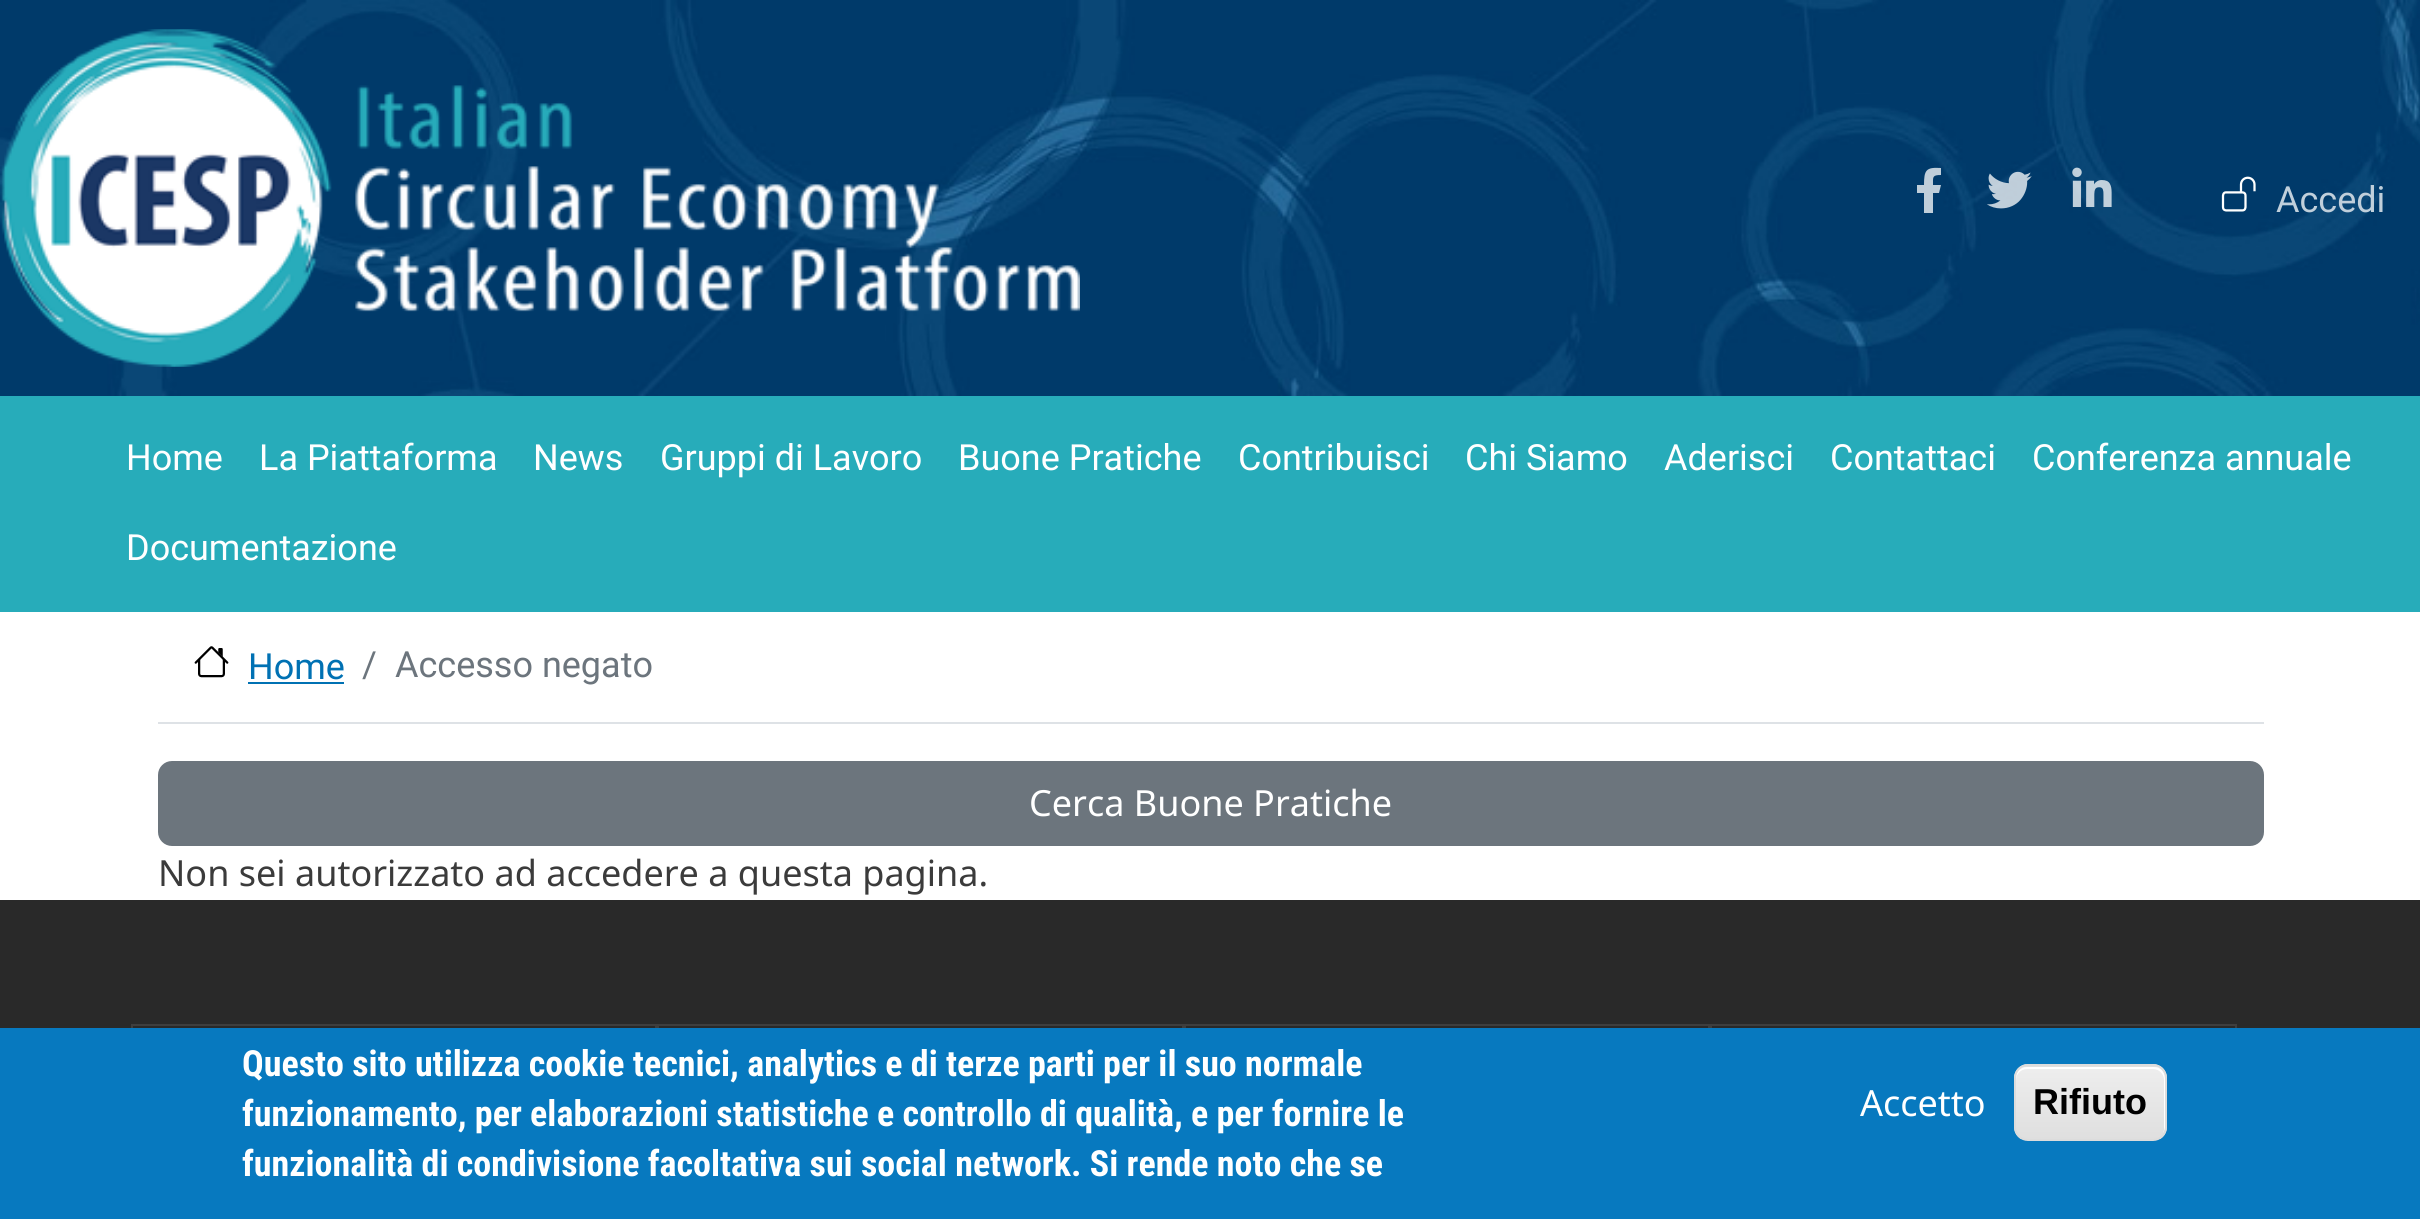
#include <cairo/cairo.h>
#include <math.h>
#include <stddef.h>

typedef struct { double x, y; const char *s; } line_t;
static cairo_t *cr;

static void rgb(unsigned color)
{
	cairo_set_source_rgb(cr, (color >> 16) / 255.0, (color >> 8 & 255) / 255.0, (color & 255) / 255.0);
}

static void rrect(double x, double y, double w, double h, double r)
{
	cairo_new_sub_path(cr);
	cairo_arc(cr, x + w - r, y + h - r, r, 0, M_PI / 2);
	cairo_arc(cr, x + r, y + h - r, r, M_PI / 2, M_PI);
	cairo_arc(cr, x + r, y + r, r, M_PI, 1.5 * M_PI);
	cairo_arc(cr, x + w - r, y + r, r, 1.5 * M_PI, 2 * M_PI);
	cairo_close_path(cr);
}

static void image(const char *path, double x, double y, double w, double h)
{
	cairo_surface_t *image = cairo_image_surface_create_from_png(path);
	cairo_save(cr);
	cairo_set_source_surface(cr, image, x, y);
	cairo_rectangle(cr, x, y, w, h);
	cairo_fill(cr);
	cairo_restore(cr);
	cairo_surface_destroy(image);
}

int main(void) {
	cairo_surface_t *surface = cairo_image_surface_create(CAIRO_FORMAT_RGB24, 2420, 1219);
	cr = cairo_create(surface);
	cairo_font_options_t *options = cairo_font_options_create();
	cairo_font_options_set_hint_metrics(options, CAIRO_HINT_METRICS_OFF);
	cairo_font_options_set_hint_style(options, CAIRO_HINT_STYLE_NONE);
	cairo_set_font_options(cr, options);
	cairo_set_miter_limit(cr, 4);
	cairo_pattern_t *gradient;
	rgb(0xffffff);
	cairo_paint(cr);
	image("img/1.png", 0, 0, 2420, 396);
	image("img/2.png", 0, 29, 1080, 338);
	rgb(0xbfceda);
	cairo_new_path(cr);
	cairo_move_to(cr, 1939, 193);
	cairo_line_to(cr, 1933, 193);
	cairo_line_to(cr, 1933, 213);
	cairo_line_to(cr, 1924, 213);
	cairo_line_to(cr, 1924, 193);
	cairo_line_to(cr, 1917, 193);
	cairo_line_to(cr, 1917, 185);
	cairo_line_to(cr, 1924, 185);
	cairo_curve_to(cr, 1924, 170, 1926, 167, 1941, 168);
	cairo_line_to(cr, 1941, 175);
	cairo_curve_to(cr, 1932, 175, 1933, 177, 1933, 185);
	cairo_line_to(cr, 1941, 185);
	cairo_close_path(cr);
	cairo_fill(cr);
	image("img/3.png", 1987, 171, 45, 38);
	image("img/4.png", 2072, 167, 40, 40);
	image("img/5.png", 2221, 176, 35, 36);
	rgb(0x27acba);
	cairo_rectangle(cr, 0, 396, 2420, 216);
	cairo_fill(cr);
	rgb(0xdee2e6);
	cairo_rectangle(cr, 158, 722, 2106, 2);
	cairo_fill(cr);
	image("img/6.png", 194, 646, 35, 32);
	rgb(0x0071b3);
	cairo_rectangle(cr, 248, 682, 96, 2);
	cairo_fill(cr);
	rgb(0x6c757d);
	rrect(159, 762, 2104, 83, 13);
	cairo_fill_preserve(cr);
	cairo_stroke(cr);
	rgb(0x292929);
	cairo_rectangle(cr, 0, 900, 2420, 128);
	cairo_fill(cr);
	cairo_rectangle(cr, 132, 1025, 524, 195);
	rgb(0x3e3e3e);
	cairo_stroke(cr);
	cairo_rectangle(cr, 658, 1025, 525, 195);
	cairo_stroke(cr);
	cairo_rectangle(cr, 1185, 1025, 524, 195);
	cairo_stroke(cr);
	cairo_rectangle(cr, 1711, 1025, 525, 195);
	cairo_stroke(cr);
	rgb(0x0779bf);
	cairo_rectangle(cr, 0, 1028, 2420, 191);
	cairo_fill(cr);
	cairo_save(cr);
	rrect(2014, 1064, 153, 77, 14);
	cairo_clip(cr);
	gradient = cairo_pattern_create_linear(2090, 995, 2090, 1067);
	cairo_pattern_add_color_stop_rgba(gradient, 0.05, 0.929, 0.929, 0.929, 1);
	cairo_pattern_add_color_stop_rgba(gradient, 1, 0.875, 0.875, 0.875, 1);
	cairo_set_source(cr, gradient);
	cairo_pattern_destroy(gradient);
	cairo_rectangle(cr, 2014, 1064, 153, 3);
	cairo_fill(cr);
	gradient = cairo_pattern_create_linear(2090, 1067, 2090, 1139);
	cairo_pattern_add_color_stop_rgba(gradient, 0.05, 0.929, 0.929, 0.929, 1);
	cairo_pattern_add_color_stop_rgba(gradient, 1, 0.875, 0.875, 0.875, 1);
	cairo_set_source(cr, gradient);
	cairo_pattern_destroy(gradient);
	cairo_rectangle(cr, 2014, 1067, 153, 72);
	cairo_fill(cr);
	cairo_restore(cr);
	rgb(0xffffff);
	cairo_new_path(cr);
	cairo_move_to(cr, 2027, 1069);
	cairo_line_to(cr, 2153, 1069);
	cairo_curve_to(cr, 2159, 1069, 2164, 1074, 2164, 1080);
	cairo_line_to(cr, 2164, 1130);
	cairo_line_to(cr, 2163, 1134);
	cairo_curve_to(cr, 2164, 1132, 2165, 1130, 2165, 1128);
	cairo_line_to(cr, 2165, 1078);
	cairo_curve_to(cr, 2165, 1072, 2160, 1067, 2154, 1067);
	cairo_line_to(cr, 2027, 1067);
	cairo_curve_to(cr, 2021, 1067, 2016, 1072, 2016, 1078);
	cairo_line_to(cr, 2016, 1080);
	cairo_curve_to(cr, 2016, 1074, 2021, 1069, 2027, 1069);
	cairo_close_path(cr);
	cairo_fill(cr);
	rrect(2015, 1065, 151, 75, 13);
	rgb(0xdcdcdc);
	cairo_stroke(cr);
	cairo_select_font_face(cr, "Roboto", CAIRO_FONT_SLANT_NORMAL, CAIRO_FONT_WEIGHT_NORMAL);
	cairo_set_font_size(cr, 36);
	rgb(0xc0cfdb);
	cairo_move_to(cr, 2276, 212);
	cairo_show_text(cr, "Accedi");
	rgb(0xffffff);
	{
		static const line_t items[] = {
			{126, 470, "Home"},
			{259, 470, "La Piattaforma"},
			{533, 470, "News"},
			{660, 470, "Gruppi di Lavoro"},
			{958, 470, "Buone Pratiche"},
			{1238, 470, "Contribuisci"},
			{1465, 470, "Chi Siamo"},
			{1664, 470, "Aderisci"},
			{1830, 470, "Contattaci"},
			{2032, 470, "Conferenza annuale"},
			{126, 560, "Documentazione"},
		};
		for (size_t i = 0; i < sizeof items / sizeof *items; i++) {
			cairo_move_to(cr, items[i].x, items[i].y);
			cairo_show_text(cr, items[i].s);
		}
	}
	rgb(0x0071b3);
	cairo_move_to(cr, 248, 679);
	cairo_show_text(cr, "Home");
	rgb(0x6c757d);
	cairo_move_to(cr, 362, 677);
	cairo_show_text(cr, "/");
	cairo_move_to(cr, 395, 677);
	cairo_show_text(cr, "Accesso negato");
	cairo_select_font_face(cr, "Noto Sans", CAIRO_FONT_SLANT_NORMAL, CAIRO_FONT_WEIGHT_NORMAL);
	rgb(0xffffff);
	cairo_move_to(cr, 1029, 816);
	cairo_show_text(cr, "Cerca Buone Pratiche");
	rgb(0x3b3b3b);
	cairo_move_to(cr, 158, 886);
	cairo_show_text(cr, "Non sei autorizzato ad accedere a questa pagina.");
	cairo_select_font_face(cr, "Roboto Condensed", CAIRO_FONT_SLANT_NORMAL, CAIRO_FONT_WEIGHT_BOLD);
	rgb(0xffffff);
	{
		static const line_t items[] = {
			{242, 1076, "Questo sito utilizza cookie tecnici, analytics e di terze parti per il suo normale"},
			{242, 1126, "funzionamento, per elaborazioni statistiche e controllo di qualità, e per fornire le"},
			{242, 1176, "funzionalità di condivisione facoltativa sui social network. Si rende noto che se"},
		};
		for (size_t i = 0; i < sizeof items / sizeof *items; i++) {
			cairo_move_to(cr, items[i].x, items[i].y);
			cairo_show_text(cr, items[i].s);
		}
	}
	cairo_select_font_face(cr, "Noto Sans", CAIRO_FONT_SLANT_NORMAL, CAIRO_FONT_WEIGHT_NORMAL);
	cairo_move_to(cr, 1860, 1116);
	cairo_show_text(cr, "Accetto");
	cairo_select_font_face(cr, "Liberation Sans", CAIRO_FONT_SLANT_NORMAL, CAIRO_FONT_WEIGHT_BOLD);
	rgb(0x000000);
	cairo_move_to(cr, 2033, 1114);
	cairo_show_text(cr, "Rifiuto");
	cairo_surface_write_to_png(surface, "page.png");
	cairo_font_options_destroy(options);
	cairo_destroy(cr);
	cairo_surface_destroy(surface);
	return 0;
}
